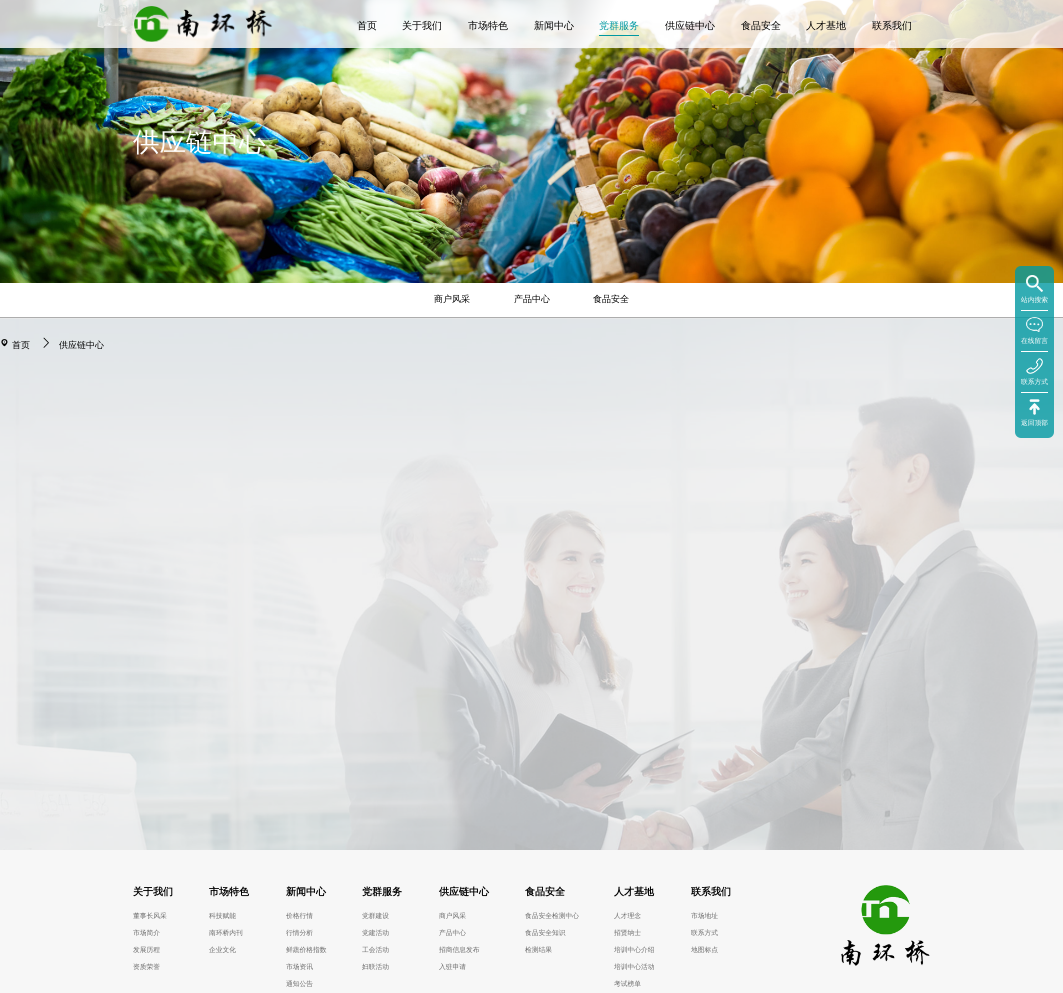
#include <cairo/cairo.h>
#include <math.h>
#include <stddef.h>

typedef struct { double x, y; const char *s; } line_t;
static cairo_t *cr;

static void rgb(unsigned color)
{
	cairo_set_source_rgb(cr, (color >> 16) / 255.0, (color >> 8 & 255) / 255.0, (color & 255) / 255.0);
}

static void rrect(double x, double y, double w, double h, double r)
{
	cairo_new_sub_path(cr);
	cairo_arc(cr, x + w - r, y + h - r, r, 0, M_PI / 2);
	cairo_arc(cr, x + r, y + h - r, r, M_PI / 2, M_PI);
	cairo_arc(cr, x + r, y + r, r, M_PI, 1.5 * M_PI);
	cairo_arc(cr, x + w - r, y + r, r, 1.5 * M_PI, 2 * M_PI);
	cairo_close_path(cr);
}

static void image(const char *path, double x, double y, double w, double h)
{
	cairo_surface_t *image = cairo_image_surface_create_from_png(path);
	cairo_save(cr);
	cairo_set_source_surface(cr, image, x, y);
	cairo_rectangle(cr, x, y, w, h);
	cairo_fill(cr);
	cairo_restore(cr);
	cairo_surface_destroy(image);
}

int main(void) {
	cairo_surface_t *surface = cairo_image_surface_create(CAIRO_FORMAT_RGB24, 1063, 993);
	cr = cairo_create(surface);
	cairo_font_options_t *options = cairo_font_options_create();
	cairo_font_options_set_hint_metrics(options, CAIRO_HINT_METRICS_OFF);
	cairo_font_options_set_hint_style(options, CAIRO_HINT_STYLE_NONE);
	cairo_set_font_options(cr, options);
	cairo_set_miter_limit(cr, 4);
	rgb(0xffffff);
	cairo_paint(cr);
	image("img/1.png", 0, 0, 1063, 283);
	cairo_set_source_rgba(cr, 1, 1, 1, 0.8);
	cairo_rectangle(cr, 0, 0, 1063, 48);
	cairo_fill(cr);
	image("img/2.png", 134, 6, 139, 36);
	rgb(0x0098a1);
	cairo_rectangle(cr, 599, 35, 40, 1);
	cairo_fill(cr);
	rgb(0xadadad);
	cairo_rectangle(cr, 0, 317, 1063, 1);
	cairo_fill(cr);
	image("img/7.png", 0, 318, 1063, 532);
	cairo_set_source_rgba(cr, 0, 0.596, 0.631, 0.8);
	rrect(1015, 266, 39, 172, 6);
	cairo_fill(cr);
	rgb(0xffffff);
	cairo_rectangle(cr, 1021, 310, 27, 1);
	cairo_fill(cr);
	image("img/3.png", 1026, 275, 17, 17);
	cairo_rectangle(cr, 1021, 351, 27, 1);
	cairo_fill(cr);
	image("img/4.png", 1026, 317, 17, 15);
	cairo_rectangle(cr, 1021, 392, 27, 1);
	cairo_fill(cr);
	image("img/5.png", 1026, 358, 17, 16);
	image("img/6.png", 1029, 399, 11, 16);
	image("img/8.png", 1, 339, 7, 8);
	image("img/9.png", 43, 337, 6, 11);
	rgb(0xf7f7f7);
	cairo_rectangle(cr, 0, 850, 1063, 143);
	cairo_fill(cr);
	image("img/10.png", 841, 885, 89, 81);
	cairo_select_font_face(cr, "WenQuanYi Zen Hei Medium", CAIRO_FONT_SLANT_NORMAL, CAIRO_FONT_WEIGHT_NORMAL);
	cairo_set_font_size(cr, 26.5);
	rgb(0xffffff);
	cairo_move_to(cr, 133, 151);
	cairo_show_text(cr, "供应链中心");
	cairo_set_font_size(cr, 10);
	rgb(0x000000);
	{
		static const line_t items[] = {
			{357, 29, "首页"},
			{402, 29, "关于我们"},
			{468, 29, "市场特色"},
			{534, 29, "新闻中心"},
		};
		for (size_t i = 0; i < sizeof items / sizeof *items; i++) {
			cairo_move_to(cr, items[i].x, items[i].y);
			cairo_show_text(cr, items[i].s);
		}
	}
	rgb(0x0098a1);
	cairo_move_to(cr, 599, 29);
	cairo_show_text(cr, "党群服务");
	rgb(0x000000);
	{
		static const line_t items[] = {
			{665, 29, "供应链中心"},
			{741, 29, "食品安全"},
			{806, 29, "人才基地"},
			{872, 29, "联系我们"},
		};
		for (size_t i = 0; i < sizeof items / sizeof *items; i++) {
			cairo_move_to(cr, items[i].x, items[i].y);
			cairo_show_text(cr, items[i].s);
		}
	}
	cairo_set_font_size(cr, 6.75);
	rgb(0xffffff);
	{
		static const line_t items[] = {
			{1021, 302, "站内搜索"},
			{1021, 343, "在线留言"},
			{1021, 384, "联系方式"},
			{1021, 425, "返回顶部"},
		};
		for (size_t i = 0; i < sizeof items / sizeof *items; i++) {
			cairo_move_to(cr, items[i].x, items[i].y);
			cairo_show_text(cr, items[i].s);
		}
	}
	cairo_set_font_size(cr, 9);
	rgb(0x000000);
	{
		static const line_t items[] = {
			{434, 302, "商户风采"},
			{514, 302, "产品中心"},
			{593, 302, "食品安全"},
			{12, 348, "首页"},
			{59, 348, "供应链中心"},
		};
		for (size_t i = 0; i < sizeof items / sizeof *items; i++) {
			cairo_move_to(cr, items[i].x, items[i].y);
			cairo_show_text(cr, items[i].s);
		}
	}
	cairo_select_font_face(cr, "WenQuanYi Zen Hei", CAIRO_FONT_SLANT_NORMAL, CAIRO_FONT_WEIGHT_BOLD);
	cairo_set_font_size(cr, 10);
	cairo_move_to(cr, 133, 895);
	cairo_show_text(cr, "关于我们");
	cairo_select_font_face(cr, "WenQuanYi Zen Hei Medium", CAIRO_FONT_SLANT_NORMAL, CAIRO_FONT_WEIGHT_NORMAL);
	cairo_set_font_size(cr, 6.75);
	rgb(0x696969);
	{
		static const line_t items[] = {
			{133, 918, "董事长风采"},
			{133, 935, "市场简介"},
			{133, 952, "发展历程"},
			{133, 969, "资质荣誉"},
		};
		for (size_t i = 0; i < sizeof items / sizeof *items; i++) {
			cairo_move_to(cr, items[i].x, items[i].y);
			cairo_show_text(cr, items[i].s);
		}
	}
	cairo_select_font_face(cr, "WenQuanYi Zen Hei", CAIRO_FONT_SLANT_NORMAL, CAIRO_FONT_WEIGHT_BOLD);
	cairo_set_font_size(cr, 10);
	rgb(0x000000);
	cairo_move_to(cr, 209, 895);
	cairo_show_text(cr, "市场特色");
	cairo_select_font_face(cr, "WenQuanYi Zen Hei Medium", CAIRO_FONT_SLANT_NORMAL, CAIRO_FONT_WEIGHT_NORMAL);
	cairo_set_font_size(cr, 6.75);
	rgb(0x696969);
	{
		static const line_t items[] = {
			{209, 918, "科技赋能"},
			{209, 935, "南环桥内刊"},
			{209, 952, "企业文化"},
		};
		for (size_t i = 0; i < sizeof items / sizeof *items; i++) {
			cairo_move_to(cr, items[i].x, items[i].y);
			cairo_show_text(cr, items[i].s);
		}
	}
	cairo_select_font_face(cr, "WenQuanYi Zen Hei", CAIRO_FONT_SLANT_NORMAL, CAIRO_FONT_WEIGHT_BOLD);
	cairo_set_font_size(cr, 10);
	rgb(0x000000);
	cairo_move_to(cr, 286, 895);
	cairo_show_text(cr, "新闻中心");
	cairo_select_font_face(cr, "WenQuanYi Zen Hei Medium", CAIRO_FONT_SLANT_NORMAL, CAIRO_FONT_WEIGHT_NORMAL);
	cairo_set_font_size(cr, 6.75);
	rgb(0x696969);
	{
		static const line_t items[] = {
			{286, 918, "价格行情"},
			{286, 935, "行情分析"},
			{286, 952, "鲜蔬价格指数"},
			{286, 969, "市场资讯"},
			{286, 986, "通知公告"},
		};
		for (size_t i = 0; i < sizeof items / sizeof *items; i++) {
			cairo_move_to(cr, items[i].x, items[i].y);
			cairo_show_text(cr, items[i].s);
		}
	}
	cairo_select_font_face(cr, "WenQuanYi Zen Hei", CAIRO_FONT_SLANT_NORMAL, CAIRO_FONT_WEIGHT_BOLD);
	cairo_set_font_size(cr, 10);
	rgb(0x000000);
	cairo_move_to(cr, 362, 895);
	cairo_show_text(cr, "党群服务");
	cairo_select_font_face(cr, "WenQuanYi Zen Hei Medium", CAIRO_FONT_SLANT_NORMAL, CAIRO_FONT_WEIGHT_NORMAL);
	cairo_set_font_size(cr, 6.75);
	rgb(0x696969);
	{
		static const line_t items[] = {
			{362, 918, "党群建设"},
			{362, 935, "党建活动"},
			{362, 952, "工会活动"},
			{362, 969, "妇联活动"},
		};
		for (size_t i = 0; i < sizeof items / sizeof *items; i++) {
			cairo_move_to(cr, items[i].x, items[i].y);
			cairo_show_text(cr, items[i].s);
		}
	}
	cairo_select_font_face(cr, "WenQuanYi Zen Hei", CAIRO_FONT_SLANT_NORMAL, CAIRO_FONT_WEIGHT_BOLD);
	cairo_set_font_size(cr, 10);
	rgb(0x000000);
	cairo_move_to(cr, 439, 895);
	cairo_show_text(cr, "供应链中心");
	cairo_select_font_face(cr, "WenQuanYi Zen Hei Medium", CAIRO_FONT_SLANT_NORMAL, CAIRO_FONT_WEIGHT_NORMAL);
	cairo_set_font_size(cr, 6.75);
	rgb(0x696969);
	{
		static const line_t items[] = {
			{439, 918, "商户风采"},
			{439, 935, "产品中心"},
			{439, 952, "招商信息发布"},
			{439, 969, "入驻申请"},
		};
		for (size_t i = 0; i < sizeof items / sizeof *items; i++) {
			cairo_move_to(cr, items[i].x, items[i].y);
			cairo_show_text(cr, items[i].s);
		}
	}
	cairo_select_font_face(cr, "WenQuanYi Zen Hei", CAIRO_FONT_SLANT_NORMAL, CAIRO_FONT_WEIGHT_BOLD);
	cairo_set_font_size(cr, 10);
	rgb(0x000000);
	cairo_move_to(cr, 525, 895);
	cairo_show_text(cr, "食品安全");
	cairo_select_font_face(cr, "WenQuanYi Zen Hei Medium", CAIRO_FONT_SLANT_NORMAL, CAIRO_FONT_WEIGHT_NORMAL);
	cairo_set_font_size(cr, 6.75);
	rgb(0x696969);
	{
		static const line_t items[] = {
			{525, 918, "食品安全检测中心"},
			{525, 935, "食品安全知识"},
			{525, 952, "检测结果"},
		};
		for (size_t i = 0; i < sizeof items / sizeof *items; i++) {
			cairo_move_to(cr, items[i].x, items[i].y);
			cairo_show_text(cr, items[i].s);
		}
	}
	cairo_select_font_face(cr, "WenQuanYi Zen Hei", CAIRO_FONT_SLANT_NORMAL, CAIRO_FONT_WEIGHT_BOLD);
	cairo_set_font_size(cr, 10);
	rgb(0x000000);
	cairo_move_to(cr, 614, 895);
	cairo_show_text(cr, "人才基地");
	cairo_select_font_face(cr, "WenQuanYi Zen Hei Medium", CAIRO_FONT_SLANT_NORMAL, CAIRO_FONT_WEIGHT_NORMAL);
	cairo_set_font_size(cr, 6.75);
	rgb(0x696969);
	{
		static const line_t items[] = {
			{614, 918, "人才理念"},
			{614, 935, "招贤纳士"},
			{614, 952, "培训中心介绍"},
			{614, 969, "培训中心活动"},
			{614, 986, "考试榜单"},
		};
		for (size_t i = 0; i < sizeof items / sizeof *items; i++) {
			cairo_move_to(cr, items[i].x, items[i].y);
			cairo_show_text(cr, items[i].s);
		}
	}
	cairo_select_font_face(cr, "WenQuanYi Zen Hei", CAIRO_FONT_SLANT_NORMAL, CAIRO_FONT_WEIGHT_BOLD);
	cairo_set_font_size(cr, 10);
	rgb(0x000000);
	cairo_move_to(cr, 691, 895);
	cairo_show_text(cr, "联系我们");
	cairo_select_font_face(cr, "WenQuanYi Zen Hei Medium", CAIRO_FONT_SLANT_NORMAL, CAIRO_FONT_WEIGHT_NORMAL);
	cairo_set_font_size(cr, 6.75);
	rgb(0x696969);
	{
		static const line_t items[] = {
			{691, 918, "市场地址"},
			{691, 935, "联系方式"},
			{691, 952, "地图标点"},
		};
		for (size_t i = 0; i < sizeof items / sizeof *items; i++) {
			cairo_move_to(cr, items[i].x, items[i].y);
			cairo_show_text(cr, items[i].s);
		}
	}
	cairo_surface_write_to_png(surface, "page.png");
	cairo_font_options_destroy(options);
	cairo_destroy(cr);
	cairo_surface_destroy(surface);
	return 0;
}
